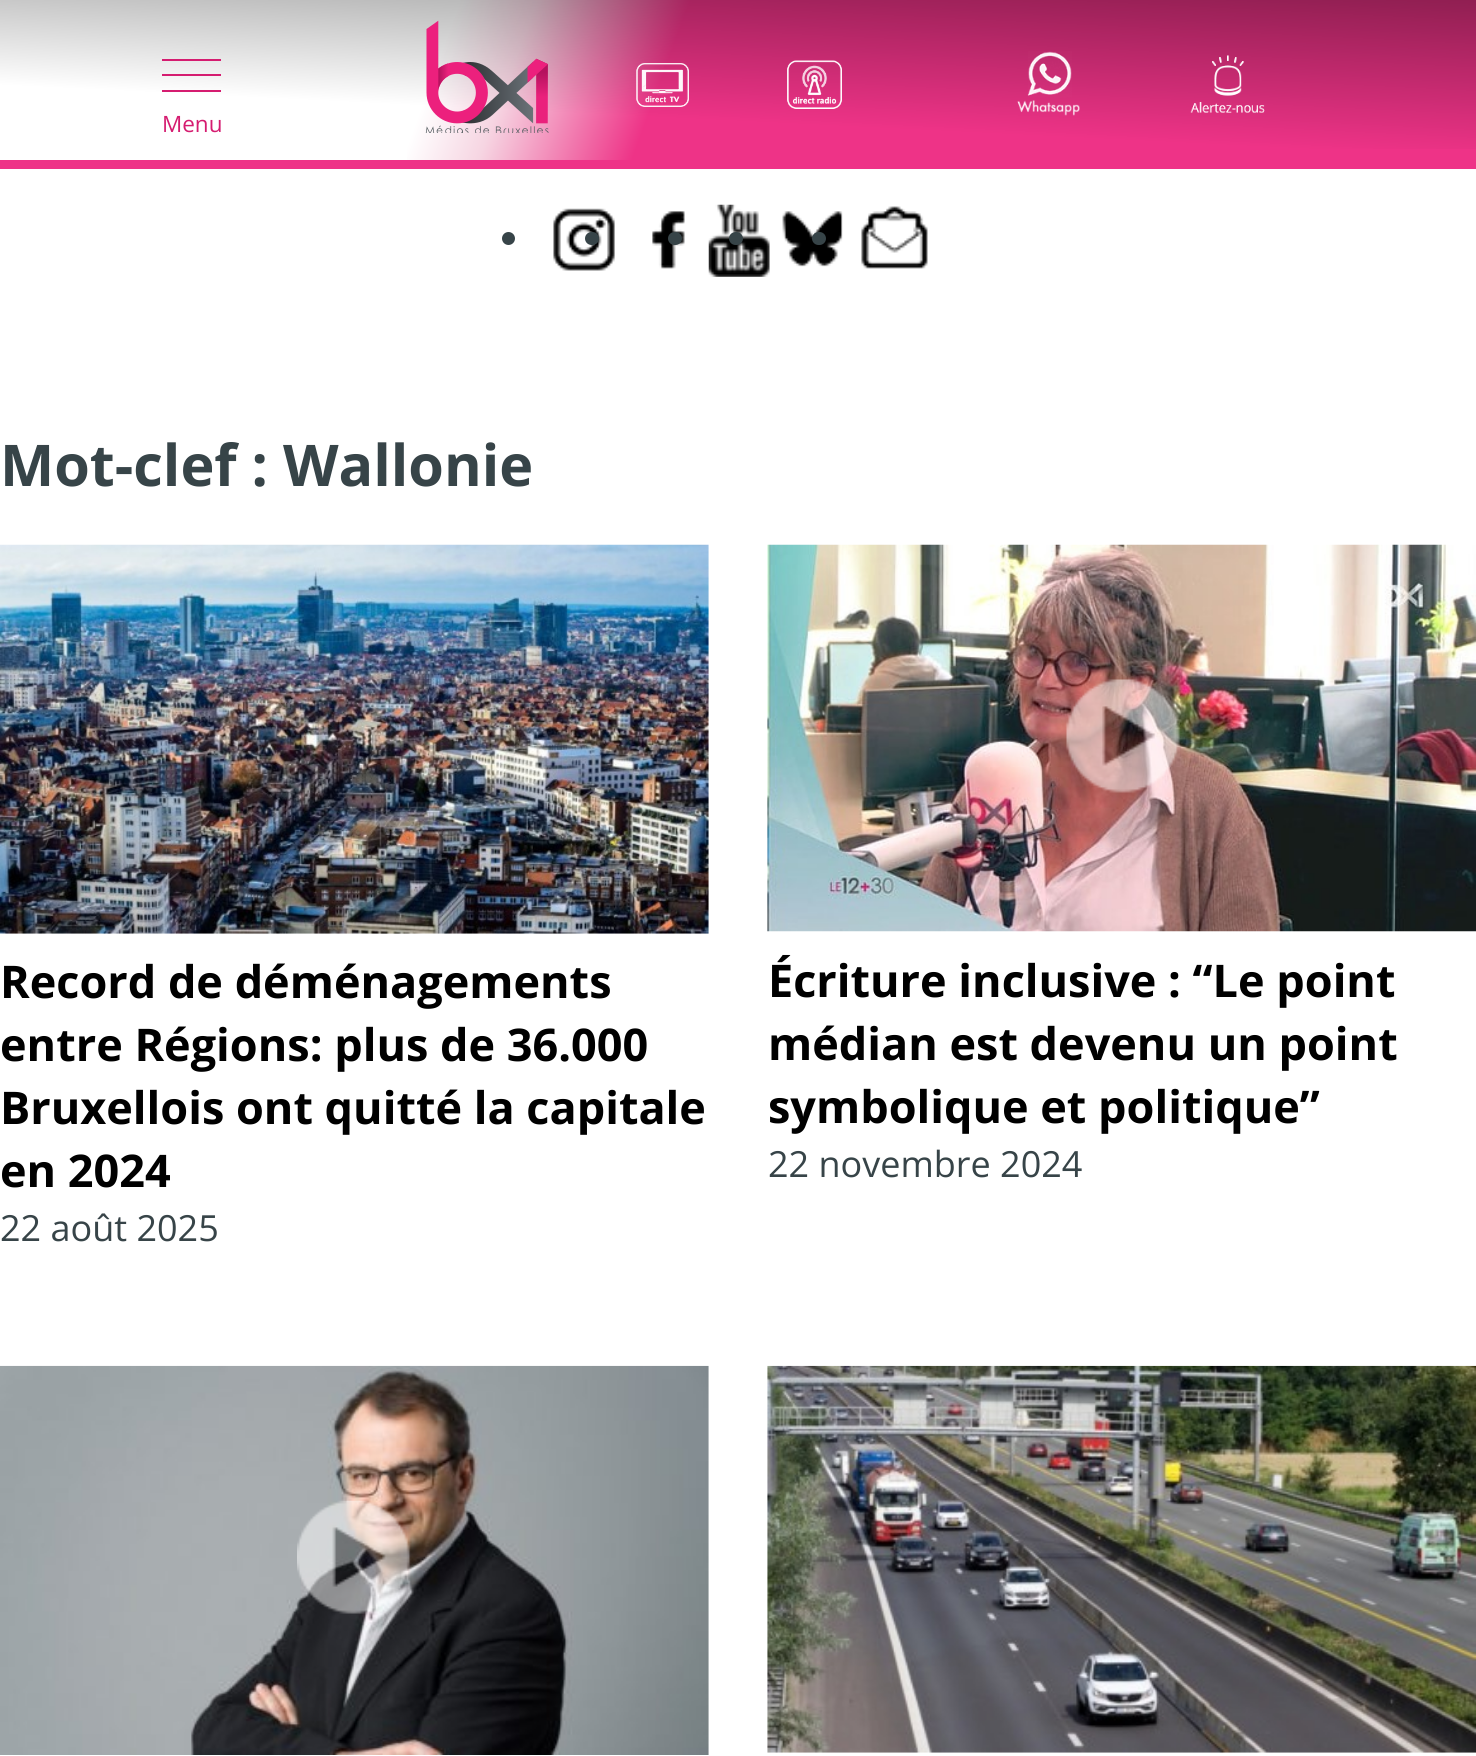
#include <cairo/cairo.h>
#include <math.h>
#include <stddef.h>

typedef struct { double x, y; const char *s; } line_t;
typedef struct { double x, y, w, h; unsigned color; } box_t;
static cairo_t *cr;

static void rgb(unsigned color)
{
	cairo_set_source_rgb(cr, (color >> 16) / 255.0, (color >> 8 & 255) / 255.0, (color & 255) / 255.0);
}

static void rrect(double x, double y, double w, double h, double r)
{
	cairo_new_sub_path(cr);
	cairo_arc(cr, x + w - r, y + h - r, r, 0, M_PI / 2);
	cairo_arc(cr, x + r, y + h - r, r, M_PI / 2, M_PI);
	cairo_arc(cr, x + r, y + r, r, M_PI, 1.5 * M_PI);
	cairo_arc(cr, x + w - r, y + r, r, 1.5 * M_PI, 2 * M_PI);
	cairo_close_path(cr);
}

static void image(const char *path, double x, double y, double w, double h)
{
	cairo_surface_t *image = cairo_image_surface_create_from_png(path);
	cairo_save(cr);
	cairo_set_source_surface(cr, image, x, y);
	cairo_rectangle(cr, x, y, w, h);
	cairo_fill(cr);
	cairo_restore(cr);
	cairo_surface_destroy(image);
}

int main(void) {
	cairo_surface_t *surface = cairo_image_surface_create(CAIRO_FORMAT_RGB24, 1476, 1756);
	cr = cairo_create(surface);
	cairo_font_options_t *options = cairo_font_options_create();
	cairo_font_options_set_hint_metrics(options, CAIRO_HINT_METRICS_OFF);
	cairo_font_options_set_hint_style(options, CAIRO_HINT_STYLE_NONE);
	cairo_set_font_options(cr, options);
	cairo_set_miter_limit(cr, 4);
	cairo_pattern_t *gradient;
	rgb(0xffffff);
	cairo_paint(cr);
	gradient = cairo_pattern_create_linear(61, -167, 1415, 326);
	cairo_pattern_add_color_stop_rgba(gradient, 0, 1, 1, 1, 1);
	cairo_pattern_add_color_stop_rgba(gradient, 0.3, 1, 1, 1, 1);
	cairo_pattern_add_color_stop_rgba(gradient, 0.35, 0.965, 0.835, 0.886, 1);
	cairo_pattern_add_color_stop_rgba(gradient, 0.45, 0.933, 0.2, 0.529, 1);
	cairo_pattern_add_color_stop_rgba(gradient, 1, 0.933, 0.2, 0.529, 1);
	cairo_set_source(cr, gradient);
	cairo_pattern_destroy(gradient);
	cairo_rectangle(cr, 407, 0, 1069, 160);
	cairo_fill(cr);
	rgb(0xee3387);
	cairo_rectangle(cr, 0, 160, 1476, 9);
	cairo_fill(cr);
	gradient = cairo_pattern_create_linear(744, -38, 732, 207);
	cairo_pattern_add_color_stop_rgba(gradient, 0, 0, 0, 0, 0.4);
	cairo_pattern_add_color_stop_rgba(gradient, 0.65, 0, 0, 0, 0);
	cairo_pattern_add_color_stop_rgba(gradient, 1, 0, 0, 0, 0);
	cairo_set_source(cr, gradient);
	cairo_pattern_destroy(gradient);
	cairo_rectangle(cr, 0, 0, 1476, 149);
	cairo_fill(cr);
	image("img/1.png", 636, 63, 53, 44);
	image("img/2.png", 787, 60, 55, 49);
	image("img/3.png", 1017, 51, 63, 65);
	image("img/4.png", 1190, 55, 75, 58);
	{
		static const box_t items[] = {
			{162, 59, 59, 2, 0xd51c70},
			{162, 74, 59, 2, 0xd51c70},
			{162, 90, 59, 2, 0xd51c70},
		};
		for (size_t i = 0; i < sizeof items / sizeof *items; i++) {
			rgb(items[i].color);
			cairo_rectangle(cr, items[i].x, items[i].y, items[i].w, items[i].h);
			cairo_fill(cr);
		}
	}
	image("img/5.png", 425, 20, 124, 113);
	rgb(0x374448);
	cairo_arc(cr, 508.5, 238.5, 6.5, 0, 2 * M_PI);
	cairo_fill(cr);
	image("img/6.png", 553, 208, 62, 63);
	rrect(585, 232, 14, 13, 6.5);
	cairo_fill(cr);
	image("img/7.png", 652, 211, 33, 58);
	rrect(668, 232, 14, 13, 6.5);
	cairo_fill(cr);
	image("img/8.png", 708, 204, 62, 73);
	rrect(729, 232, 14, 13, 6.5);
	cairo_fill(cr);
	image("img/9.png", 782, 211, 61, 56);
	rrect(812, 232, 14, 13, 6.5);
	cairo_fill(cr);
	image("img/10.png", 861, 206, 67, 63);
	image("img/11.png", 0, 544, 709, 390);
	image("img/12.png", 767, 544, 709, 388);
	image("img/13.png", 1066, 679, 114, 114);
	image("img/14.png", 0, 1365, 709, 390);
	image("img/15.png", 297, 1500, 114, 114);
	image("img/16.png", 767, 1365, 709, 388);
	cairo_select_font_face(cr, "Open Sans", CAIRO_FONT_SLANT_NORMAL, CAIRO_FONT_WEIGHT_NORMAL);
	cairo_set_font_size(cr, 22.5);
	rgb(0xd51c70);
	cairo_move_to(cr, 162, 132);
	cairo_show_text(cr, "Menu");
	cairo_select_font_face(cr, "Open Sans", CAIRO_FONT_SLANT_NORMAL, CAIRO_FONT_WEIGHT_BOLD);
	cairo_set_font_size(cr, 57.5);
	rgb(0x374448);
	cairo_move_to(cr, 0, 486);
	cairo_show_text(cr, "Mot-clef : Wallonie");
	cairo_set_font_size(cr, 45);
	rgb(0x000000);
	{
		static const line_t items[] = {
			{0, 998, "Record de déménagements"},
			{0, 1061, "entre Régions: plus de 36.000"},
			{0, 1124, "Bruxellois ont quitté la capitale"},
			{0, 1187, "en 2024"},
		};
		for (size_t i = 0; i < sizeof items / sizeof *items; i++) {
			cairo_move_to(cr, items[i].x, items[i].y);
			cairo_show_text(cr, items[i].s);
		}
	}
	cairo_select_font_face(cr, "Open Sans", CAIRO_FONT_SLANT_NORMAL, CAIRO_FONT_WEIGHT_NORMAL);
	cairo_set_font_size(cr, 36);
	rgb(0x374448);
	cairo_move_to(cr, 0, 1241);
	cairo_show_text(cr, "22 août 2025");
	cairo_select_font_face(cr, "Open Sans", CAIRO_FONT_SLANT_NORMAL, CAIRO_FONT_WEIGHT_BOLD);
	cairo_set_font_size(cr, 45);
	rgb(0x000000);
	{
		static const line_t items[] = {
			{768, 997, "Écriture inclusive : “Le point"},
			{768, 1060, "médian est devenu un point"},
			{768, 1123, "symbolique et politique”"},
		};
		for (size_t i = 0; i < sizeof items / sizeof *items; i++) {
			cairo_move_to(cr, items[i].x, items[i].y);
			cairo_show_text(cr, items[i].s);
		}
	}
	cairo_select_font_face(cr, "Open Sans", CAIRO_FONT_SLANT_NORMAL, CAIRO_FONT_WEIGHT_NORMAL);
	cairo_set_font_size(cr, 36);
	rgb(0x374448);
	cairo_move_to(cr, 768, 1177);
	cairo_show_text(cr, "22 novembre 2024");
	cairo_surface_write_to_png(surface, "page.png");
	cairo_font_options_destroy(options);
	cairo_destroy(cr);
	cairo_surface_destroy(surface);
	return 0;
}
